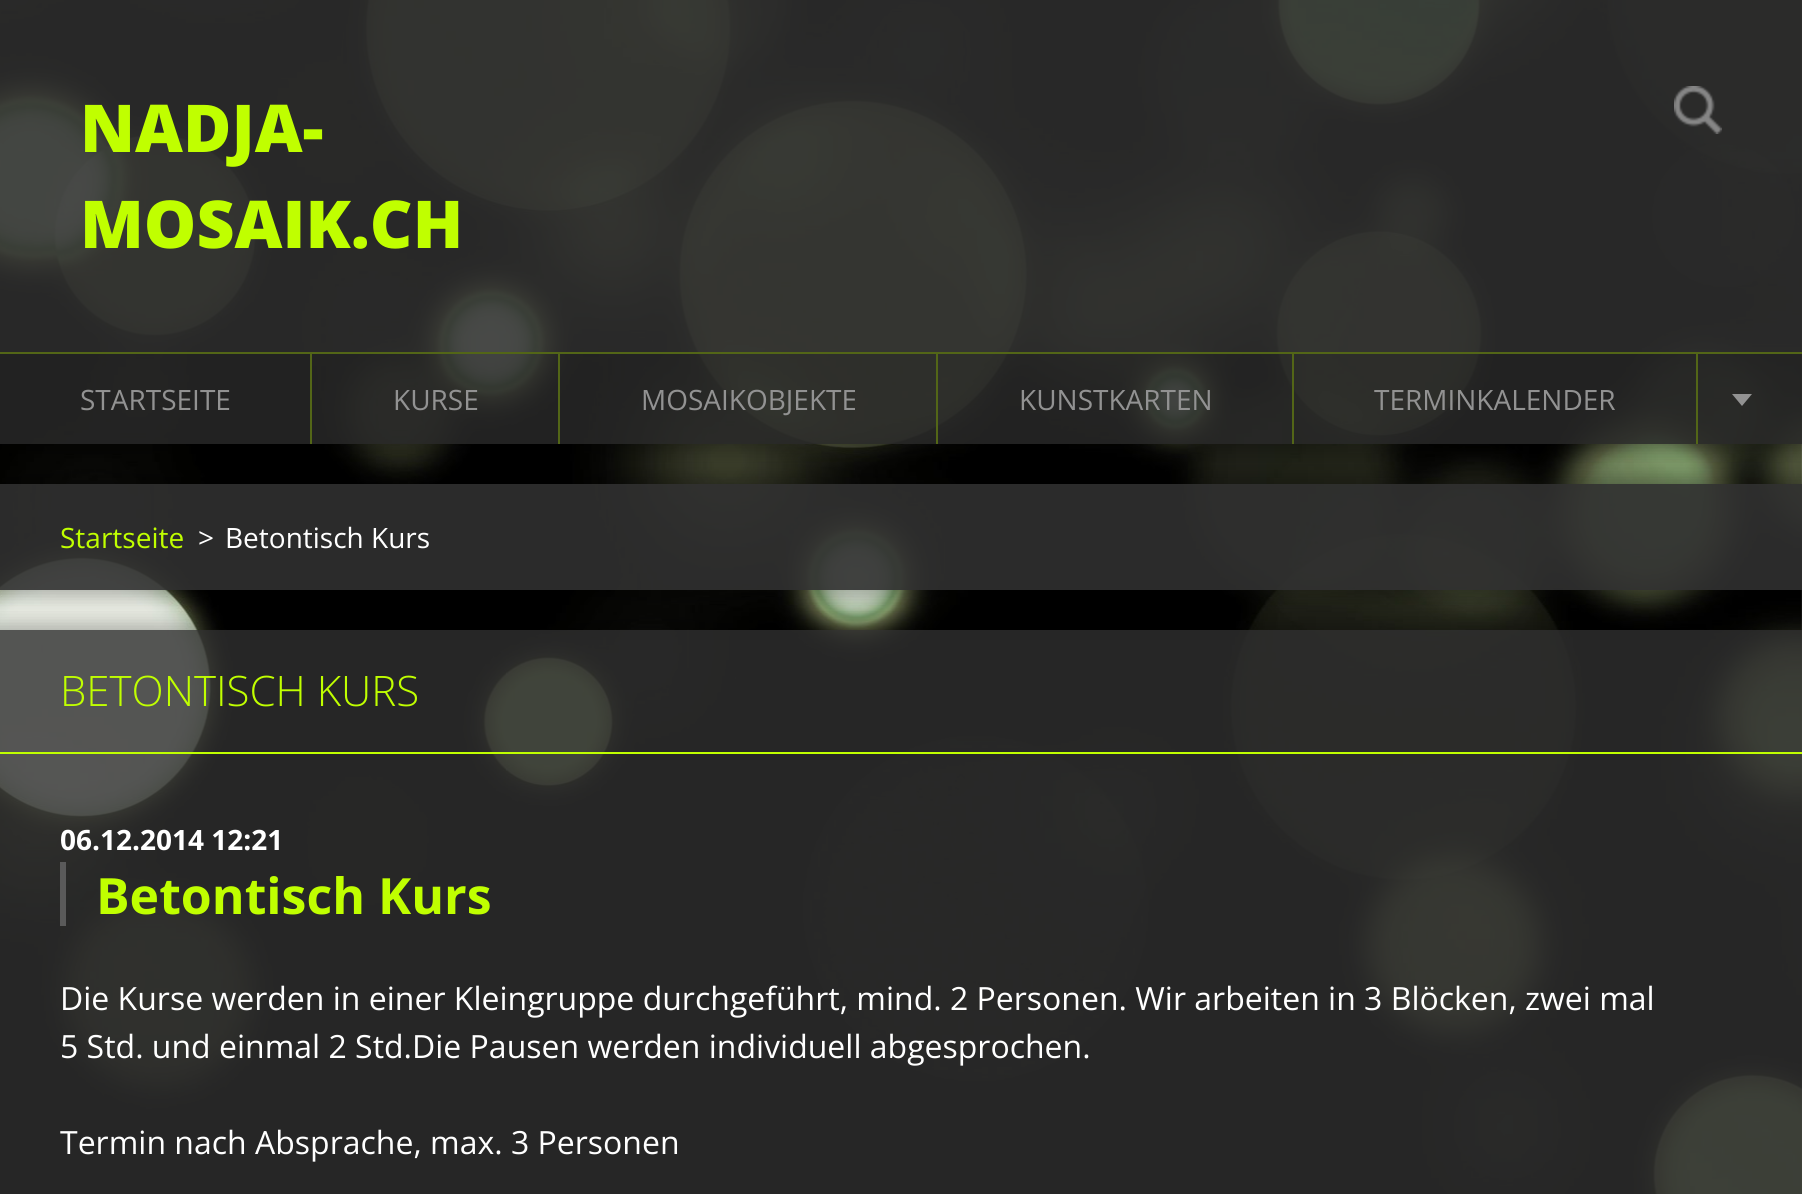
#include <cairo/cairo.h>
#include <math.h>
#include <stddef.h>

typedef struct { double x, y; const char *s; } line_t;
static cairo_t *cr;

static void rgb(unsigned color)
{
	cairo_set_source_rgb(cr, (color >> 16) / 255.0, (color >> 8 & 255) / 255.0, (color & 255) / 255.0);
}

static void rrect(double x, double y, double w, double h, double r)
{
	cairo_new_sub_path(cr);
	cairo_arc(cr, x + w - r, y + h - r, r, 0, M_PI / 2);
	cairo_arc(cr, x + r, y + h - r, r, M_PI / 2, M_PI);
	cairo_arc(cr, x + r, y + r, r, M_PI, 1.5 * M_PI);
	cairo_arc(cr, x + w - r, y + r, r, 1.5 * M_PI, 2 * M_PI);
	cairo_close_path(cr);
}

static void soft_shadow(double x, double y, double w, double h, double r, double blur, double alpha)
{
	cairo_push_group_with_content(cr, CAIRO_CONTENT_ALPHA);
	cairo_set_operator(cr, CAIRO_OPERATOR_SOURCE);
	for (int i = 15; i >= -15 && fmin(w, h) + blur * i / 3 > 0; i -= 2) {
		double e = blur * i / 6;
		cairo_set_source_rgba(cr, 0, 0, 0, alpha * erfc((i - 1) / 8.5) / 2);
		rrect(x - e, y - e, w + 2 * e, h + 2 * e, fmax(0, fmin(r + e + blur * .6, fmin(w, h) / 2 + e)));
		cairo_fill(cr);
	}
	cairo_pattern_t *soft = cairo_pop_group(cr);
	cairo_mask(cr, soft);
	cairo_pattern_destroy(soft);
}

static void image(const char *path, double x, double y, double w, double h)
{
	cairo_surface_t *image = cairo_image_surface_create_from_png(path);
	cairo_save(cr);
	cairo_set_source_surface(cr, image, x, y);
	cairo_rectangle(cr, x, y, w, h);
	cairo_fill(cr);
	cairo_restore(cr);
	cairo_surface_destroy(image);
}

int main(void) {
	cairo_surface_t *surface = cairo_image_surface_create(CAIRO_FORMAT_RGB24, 1802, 1194);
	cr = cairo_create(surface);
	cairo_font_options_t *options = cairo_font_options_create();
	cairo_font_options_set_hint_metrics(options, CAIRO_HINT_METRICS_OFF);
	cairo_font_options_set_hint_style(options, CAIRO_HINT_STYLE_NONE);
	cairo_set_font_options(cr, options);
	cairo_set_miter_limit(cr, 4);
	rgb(0xffffff);
	cairo_paint(cr);
	image("img/1.png", 0, 0, 1802, 1194);
	cairo_save(cr);
	cairo_rectangle(cr, 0, 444, 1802, 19);
	cairo_clip(cr);
	rgb(0x000000);
	soft_shadow(-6, -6, 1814, 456, 0, 9, 0.25);
	cairo_restore(cr);
	cairo_set_source_rgba(cr, 0.188, 0.188, 0.188, 0.85);
	cairo_rectangle(cr, 0, 0, 1802, 352);
	cairo_fill(cr);
	image("img/2.png", 1674, 86, 48, 48);
	rgb(0x536617);
	cairo_rectangle(cr, 0, 352, 1802, 2);
	cairo_fill(cr);
	cairo_set_source_rgba(cr, 0.157, 0.157, 0.157, 0.85);
	cairo_rectangle(cr, 0, 354, 1802, 90);
	cairo_fill(cr);
	rgb(0x536617);
	cairo_rectangle(cr, 310, 354, 2, 90);
	cairo_fill(cr);
	cairo_rectangle(cr, 558, 354, 2, 90);
	cairo_fill(cr);
	cairo_rectangle(cr, 936, 354, 2, 90);
	cairo_fill(cr);
	cairo_rectangle(cr, 1292, 354, 2, 90);
	cairo_fill(cr);
	cairo_rectangle(cr, 1696, 354, 2, 90);
	cairo_fill(cr);
	rgb(0x929292);
	cairo_new_path(cr);
	cairo_move_to(cr, 1732, 394);
	cairo_line_to(cr, 1752, 394);
	cairo_line_to(cr, 1742, 406);
	cairo_close_path(cr);
	cairo_fill(cr);
	cairo_save(cr);
	cairo_set_fill_rule(cr, CAIRO_FILL_RULE_EVEN_ODD);
	cairo_new_path(cr);
	cairo_move_to(cr, 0, 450);
	cairo_line_to(cr, 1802, 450);
	cairo_line_to(cr, 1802, 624);
	cairo_line_to(cr, 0, 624);
	cairo_close_path(cr);
	cairo_move_to(cr, 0, 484);
	cairo_line_to(cr, 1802, 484);
	cairo_line_to(cr, 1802, 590);
	cairo_line_to(cr, 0, 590);
	cairo_close_path(cr);
	cairo_clip(cr);
	rgb(0x000000);
	soft_shadow(-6, 478, 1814, 118, 0, 9, 0.25);
	cairo_restore(cr);
	cairo_set_source_rgba(cr, 0.188, 0.188, 0.188, 0.9);
	cairo_rectangle(cr, 0, 484, 1802, 106);
	cairo_fill(cr);
	cairo_save(cr);
	cairo_rectangle(cr, 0, 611, 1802, 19);
	cairo_clip(cr);
	rgb(0x000000);
	soft_shadow(-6, 624, 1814, 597, 0, 9, 0.25);
	cairo_restore(cr);
	cairo_set_source_rgba(cr, 0.188, 0.188, 0.188, 0.8);
	cairo_rectangle(cr, 0, 630, 1802, 122);
	cairo_fill(cr);
	rgb(0xc0ff00);
	cairo_rectangle(cr, 0, 752, 1802, 2);
	cairo_fill(cr);
	cairo_set_source_rgba(cr, 0.188, 0.188, 0.188, 0.8);
	cairo_rectangle(cr, 0, 754, 1802, 440);
	cairo_fill(cr);
	rgb(0x5a5a5a);
	cairo_rectangle(cr, 60, 862, 6, 64);
	cairo_fill(cr);
	cairo_select_font_face(cr, "Open Sans ExtraBold", CAIRO_FONT_SLANT_NORMAL, CAIRO_FONT_WEIGHT_NORMAL);
	cairo_set_font_size(cr, 66);
	rgb(0xc0ff00);
	cairo_move_to(cr, 80, 152);
	cairo_show_text(cr, "NADJA-");
	cairo_move_to(cr, 80, 248);
	cairo_show_text(cr, "MOSAIK.CH");
	cairo_select_font_face(cr, "Open Sans", CAIRO_FONT_SLANT_NORMAL, CAIRO_FONT_WEIGHT_NORMAL);
	cairo_set_font_size(cr, 28);
	rgb(0x929292);
	{
		static const line_t items[] = {
			{80, 410, "STARTSEITE"},
			{393, 410, "KURSE"},
			{641, 410, "MOSAIKOBJEKTE"},
			{1019, 410, "KUNSTKARTEN"},
			{1374, 410, "TERMINKALENDER"},
		};
		for (size_t i = 0; i < sizeof items / sizeof *items; i++) {
			cairo_move_to(cr, items[i].x, items[i].y);
			cairo_show_text(cr, items[i].s);
		}
	}
	rgb(0xc0ff00);
	cairo_move_to(cr, 60, 548);
	cairo_show_text(cr, "Startseite");
	rgb(0xffffff);
	cairo_move_to(cr, 198, 548);
	cairo_show_text(cr, ">");
	cairo_move_to(cr, 225, 548);
	cairo_show_text(cr, "Betontisch Kurs");
	cairo_select_font_face(cr, "Open Sans Light", CAIRO_FONT_SLANT_NORMAL, CAIRO_FONT_WEIGHT_NORMAL);
	cairo_set_font_size(cr, 42);
	rgb(0xc0ff00);
	cairo_move_to(cr, 60, 706);
	cairo_show_text(cr, "BETONTISCH KURS");
	cairo_select_font_face(cr, "Open Sans", CAIRO_FONT_SLANT_NORMAL, CAIRO_FONT_WEIGHT_BOLD);
	cairo_set_font_size(cr, 28);
	rgb(0xffffff);
	cairo_move_to(cr, 60, 850);
	cairo_show_text(cr, "06.12.2014 12:21");
	cairo_set_font_size(cr, 50);
	rgb(0xc0ff00);
	cairo_move_to(cr, 96, 914);
	cairo_show_text(cr, "Betontisch Kurs");
	cairo_select_font_face(cr, "Open Sans", CAIRO_FONT_SLANT_NORMAL, CAIRO_FONT_WEIGHT_NORMAL);
	cairo_set_font_size(cr, 32);
	rgb(0xffffff);
	{
		static const line_t items[] = {
			{60, 1010, "Die Kurse werden in einer Kleingruppe durchgeführt, mind. 2 Personen. Wir arbeiten in 3 Blöcken, zwei mal"},
			{60, 1058, "5 Std. und einmal 2 Std.Die Pausen werden individuell abgesprochen."},
			{60, 1154, "Termin nach Absprache, max. 3 Personen"},
		};
		for (size_t i = 0; i < sizeof items / sizeof *items; i++) {
			cairo_move_to(cr, items[i].x, items[i].y);
			cairo_show_text(cr, items[i].s);
		}
	}
	cairo_surface_write_to_png(surface, "page.png");
	cairo_font_options_destroy(options);
	cairo_destroy(cr);
	cairo_surface_destroy(surface);
	return 0;
}
